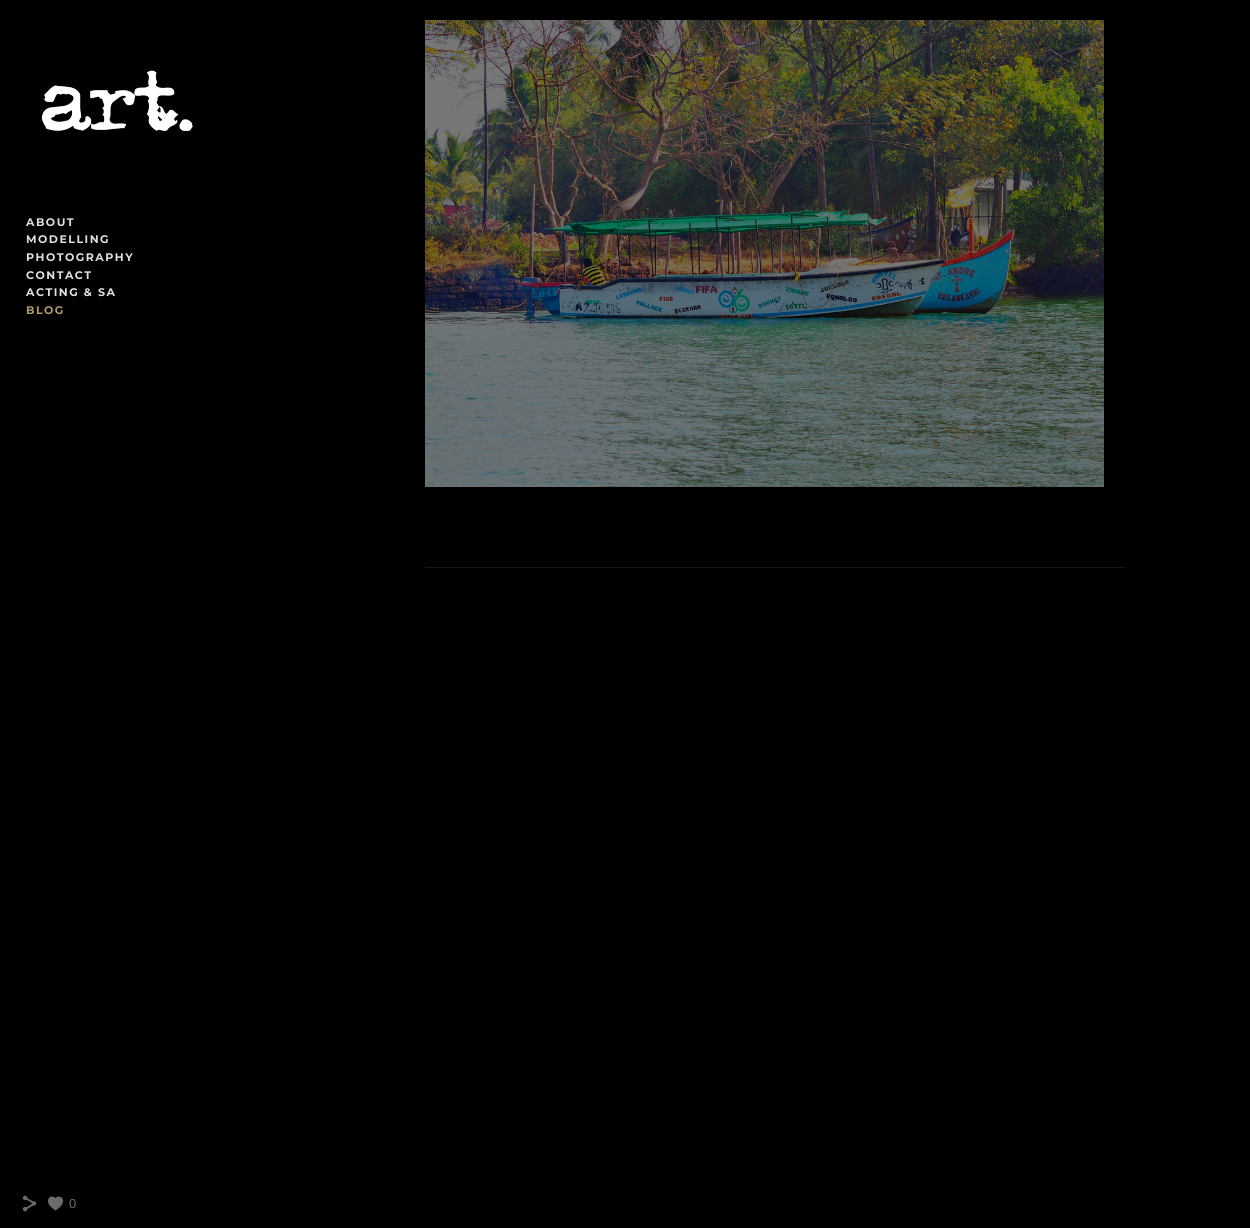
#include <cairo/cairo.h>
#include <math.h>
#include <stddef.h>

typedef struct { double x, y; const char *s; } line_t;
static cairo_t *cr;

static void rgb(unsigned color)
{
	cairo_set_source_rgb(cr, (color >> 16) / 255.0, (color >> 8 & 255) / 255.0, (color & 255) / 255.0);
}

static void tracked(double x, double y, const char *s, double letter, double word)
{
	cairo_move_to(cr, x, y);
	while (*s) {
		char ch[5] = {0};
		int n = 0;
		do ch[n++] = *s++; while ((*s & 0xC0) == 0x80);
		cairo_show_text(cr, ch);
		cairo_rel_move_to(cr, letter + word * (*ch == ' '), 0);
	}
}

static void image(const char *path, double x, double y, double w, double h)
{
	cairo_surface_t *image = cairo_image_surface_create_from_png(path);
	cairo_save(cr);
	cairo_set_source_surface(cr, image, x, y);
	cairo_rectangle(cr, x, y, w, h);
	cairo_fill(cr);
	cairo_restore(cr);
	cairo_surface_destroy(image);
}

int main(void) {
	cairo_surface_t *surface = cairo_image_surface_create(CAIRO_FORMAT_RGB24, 1250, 1228);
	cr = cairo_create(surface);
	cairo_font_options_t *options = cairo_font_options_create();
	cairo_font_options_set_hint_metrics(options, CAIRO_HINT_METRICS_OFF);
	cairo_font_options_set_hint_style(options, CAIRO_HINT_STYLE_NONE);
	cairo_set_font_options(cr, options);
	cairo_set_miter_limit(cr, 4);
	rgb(0x000000);
	cairo_paint(cr);
	image("img/1.png", 41, 70, 152, 61);
	rgb(0x171717);
	cairo_rectangle(cr, 425, 567, 700, 1);
	cairo_fill(cr);
	image("img/2.png", 425, 20, 679, 467);
	image("img/3.png", 22, 1195, 15, 17);
	image("img/4.png", 47, 1196, 17, 15);
	cairo_select_font_face(cr, "Montserrat", CAIRO_FONT_SLANT_NORMAL, CAIRO_FONT_WEIGHT_BOLD);
	cairo_set_font_size(cr, 11);
	rgb(0xe0e0e0);
	{
		static const line_t items[] = {
			{26, 226, "ABOUT"},
			{26, 243, "MODELLING"},
			{26, 261, "PHOTOGRAPHY"},
			{26, 279, "CONTACT"},
			{26, 296, "ACTING & SA"},
		};
		for (size_t i = 0; i < sizeof items / sizeof *items; i++) {
			tracked(items[i].x, items[i].y, items[i].s, 1.5, 0);
		}
	}
	rgb(0xb39a6b);
	tracked(26, 314, "BLOG", 1.5, 0);
	cairo_select_font_face(cr, "Liberation Sans", CAIRO_FONT_SLANT_NORMAL, CAIRO_FONT_WEIGHT_NORMAL);
	cairo_set_font_size(cr, 13);
	rgb(0x6b6b6b);
	cairo_move_to(cr, 69, 1208);
	cairo_show_text(cr, "0");
	cairo_surface_write_to_png(surface, "page.png");
	cairo_font_options_destroy(options);
	cairo_destroy(cr);
	cairo_surface_destroy(surface);
	return 0;
}
